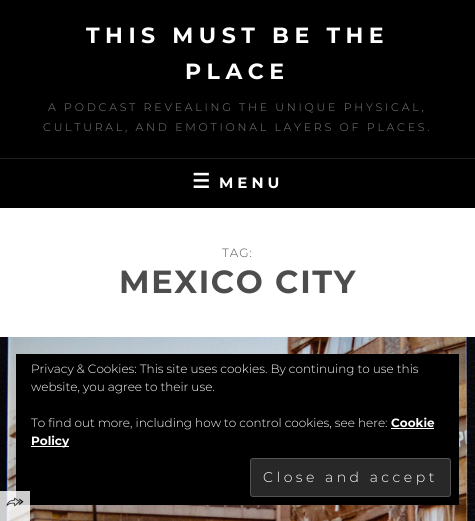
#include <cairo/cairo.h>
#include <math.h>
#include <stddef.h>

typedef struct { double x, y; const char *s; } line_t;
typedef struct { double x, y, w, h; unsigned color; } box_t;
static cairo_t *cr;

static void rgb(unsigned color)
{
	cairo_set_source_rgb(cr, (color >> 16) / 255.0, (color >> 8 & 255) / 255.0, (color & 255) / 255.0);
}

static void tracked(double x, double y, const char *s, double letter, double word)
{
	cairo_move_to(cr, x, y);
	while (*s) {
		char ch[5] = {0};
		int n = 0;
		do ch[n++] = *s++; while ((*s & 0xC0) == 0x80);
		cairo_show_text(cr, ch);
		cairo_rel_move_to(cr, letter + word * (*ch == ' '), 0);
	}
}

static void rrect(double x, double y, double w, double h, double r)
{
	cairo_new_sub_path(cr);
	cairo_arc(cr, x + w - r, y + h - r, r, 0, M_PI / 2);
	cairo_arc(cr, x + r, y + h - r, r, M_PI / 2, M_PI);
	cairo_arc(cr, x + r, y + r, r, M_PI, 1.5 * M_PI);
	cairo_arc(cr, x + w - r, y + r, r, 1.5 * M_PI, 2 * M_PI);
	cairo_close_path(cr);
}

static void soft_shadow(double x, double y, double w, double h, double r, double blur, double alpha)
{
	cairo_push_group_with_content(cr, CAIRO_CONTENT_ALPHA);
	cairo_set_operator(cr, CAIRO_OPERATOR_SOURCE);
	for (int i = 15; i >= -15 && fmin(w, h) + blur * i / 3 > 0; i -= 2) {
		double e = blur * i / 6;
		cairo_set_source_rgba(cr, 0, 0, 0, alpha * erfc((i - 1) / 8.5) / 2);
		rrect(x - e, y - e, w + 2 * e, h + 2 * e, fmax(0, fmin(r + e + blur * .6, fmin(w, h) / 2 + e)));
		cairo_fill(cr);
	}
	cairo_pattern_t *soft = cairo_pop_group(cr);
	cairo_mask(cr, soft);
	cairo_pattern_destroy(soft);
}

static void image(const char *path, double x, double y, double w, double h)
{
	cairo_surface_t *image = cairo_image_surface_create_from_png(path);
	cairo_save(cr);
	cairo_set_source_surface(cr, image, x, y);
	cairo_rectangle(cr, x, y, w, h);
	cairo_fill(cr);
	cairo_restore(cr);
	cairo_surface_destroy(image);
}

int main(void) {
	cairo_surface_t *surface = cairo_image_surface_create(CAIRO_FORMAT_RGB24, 475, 521);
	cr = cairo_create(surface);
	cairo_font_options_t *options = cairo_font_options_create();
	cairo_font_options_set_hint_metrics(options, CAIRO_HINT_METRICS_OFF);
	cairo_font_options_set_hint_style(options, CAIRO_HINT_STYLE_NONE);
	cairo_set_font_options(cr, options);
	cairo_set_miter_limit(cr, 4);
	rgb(0xffffff);
	cairo_paint(cr);
	rgb(0x000000);
	cairo_rectangle(cr, 0, 0, 475, 208);
	cairo_fill(cr);
	rgb(0x1f1f1f);
	cairo_rectangle(cr, 0, 158, 475, 1);
	cairo_fill(cr);
	image("img/1.png", 0, 337, 475, 184);
	{
		static const box_t items[] = {
			{16, 354, 443, 151, 0x000000},
			{391, 428, 43, 1, 0xffffff},
			{31, 446, 38, 1, 0xffffff},
		};
		for (size_t i = 0; i < sizeof items / sizeof *items; i++) {
			rgb(items[i].color);
			cairo_rectangle(cr, items[i].x, items[i].y, items[i].w, items[i].h);
			cairo_fill(cr);
		}
	}
	rgb(0x282828);
	rrect(250.5, 458.5, 200, 38, 2.5);
	cairo_fill_preserve(cr);
	rgb(0x535353);
	cairo_set_line_width(cr, 1);
	cairo_stroke(cr);
	cairo_save(cr);
	cairo_set_fill_rule(cr, CAIRO_FILL_RULE_EVEN_ODD);
	cairo_new_path(cr);
	cairo_move_to(cr, 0, 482);
	cairo_line_to(cr, 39, 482);
	cairo_line_to(cr, 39, 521);
	cairo_line_to(cr, 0, 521);
	cairo_close_path(cr);
	cairo_move_to(cr, 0, 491);
	cairo_line_to(cr, 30, 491);
	cairo_line_to(cr, 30, 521);
	cairo_line_to(cr, 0, 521);
	cairo_close_path(cr);
	cairo_clip(cr);
	rgb(0x000000);
	soft_shadow(0, 491, 30, 30, 0, 2.5, 0.2);
	cairo_restore(cr);
	cairo_set_source_rgba(cr, 1, 1, 1, 0.8);
	cairo_rectangle(cr, 0, 491, 30, 30);
	cairo_fill(cr);
	image("img/2.png", 6, 497, 18, 10);
	cairo_select_font_face(cr, "Montserrat", CAIRO_FONT_SLANT_NORMAL, CAIRO_FONT_WEIGHT_BOLD);
	cairo_set_font_size(cr, 22);
	rgb(0xffffff);
	tracked(86, 43, "THIS MUST BE THE", 5.5, 0);
	tracked(185, 79, "PLACE", 5.5, 0);
	cairo_select_font_face(cr, "Montserrat Light", CAIRO_FONT_SLANT_NORMAL, CAIRO_FONT_WEIGHT_NORMAL);
	cairo_set_font_size(cr, 11);
	rgb(0x808080);
	tracked(48, 111, "A PODCAST REVEALING THE UNIQUE PHYSICAL,", 2.75, 0);
	tracked(43, 131, "CULTURAL, AND EMOTIONAL LAYERS OF PLACES.", 2.75, 0);
	cairo_select_font_face(cr, "DejaVu Sans", CAIRO_FONT_SLANT_NORMAL, CAIRO_FONT_WEIGHT_BOLD);
	cairo_set_font_size(cr, 20);
	rgb(0xffffff);
	tracked(192, 188, "☰", 4, 0);
	cairo_select_font_face(cr, "Montserrat", CAIRO_FONT_SLANT_NORMAL, CAIRO_FONT_WEIGHT_BOLD);
	cairo_set_font_size(cr, 15);
	tracked(219, 188, "MENU", 4, 0);
	cairo_select_font_face(cr, "Montserrat Light", CAIRO_FONT_SLANT_NORMAL, CAIRO_FONT_WEIGHT_NORMAL);
	cairo_set_font_size(cr, 12);
	rgb(0x4d4d4d);
	tracked(222, 257, "TAG:", 1, 0);
	cairo_select_font_face(cr, "Montserrat", CAIRO_FONT_SLANT_NORMAL, CAIRO_FONT_WEIGHT_BOLD);
	cairo_set_font_size(cr, 32);
	tracked(119, 293, "MEXICO CITY", 1.6, 0);
	cairo_select_font_face(cr, "Montserrat Light", CAIRO_FONT_SLANT_NORMAL, CAIRO_FONT_WEIGHT_NORMAL);
	cairo_set_font_size(cr, 12);
	rgb(0xffffff);
	{
		static const line_t items[] = {
			{31, 373, "Privacy & Cookies: This site uses cookies. By continuing to use this"},
			{31, 391, "website, you agree to their use."},
			{31, 427, "To find out more, including how to control cookies, see here:"},
		};
		for (size_t i = 0; i < sizeof items / sizeof *items; i++) {
			cairo_move_to(cr, items[i].x, items[i].y);
			cairo_show_text(cr, items[i].s);
		}
	}
	cairo_select_font_face(cr, "Montserrat", CAIRO_FONT_SLANT_NORMAL, CAIRO_FONT_WEIGHT_BOLD);
	cairo_move_to(cr, 391, 427);
	cairo_show_text(cr, "Cookie");
	cairo_move_to(cr, 31, 445);
	cairo_show_text(cr, "Policy");
	cairo_select_font_face(cr, "Montserrat Light", CAIRO_FONT_SLANT_NORMAL, CAIRO_FONT_WEIGHT_NORMAL);
	cairo_set_font_size(cr, 14);
	tracked(263, 482, "Close and accept", 3.5, 0);
	cairo_surface_write_to_png(surface, "page.png");
	cairo_font_options_destroy(options);
	cairo_destroy(cr);
	cairo_surface_destroy(surface);
	return 0;
}
